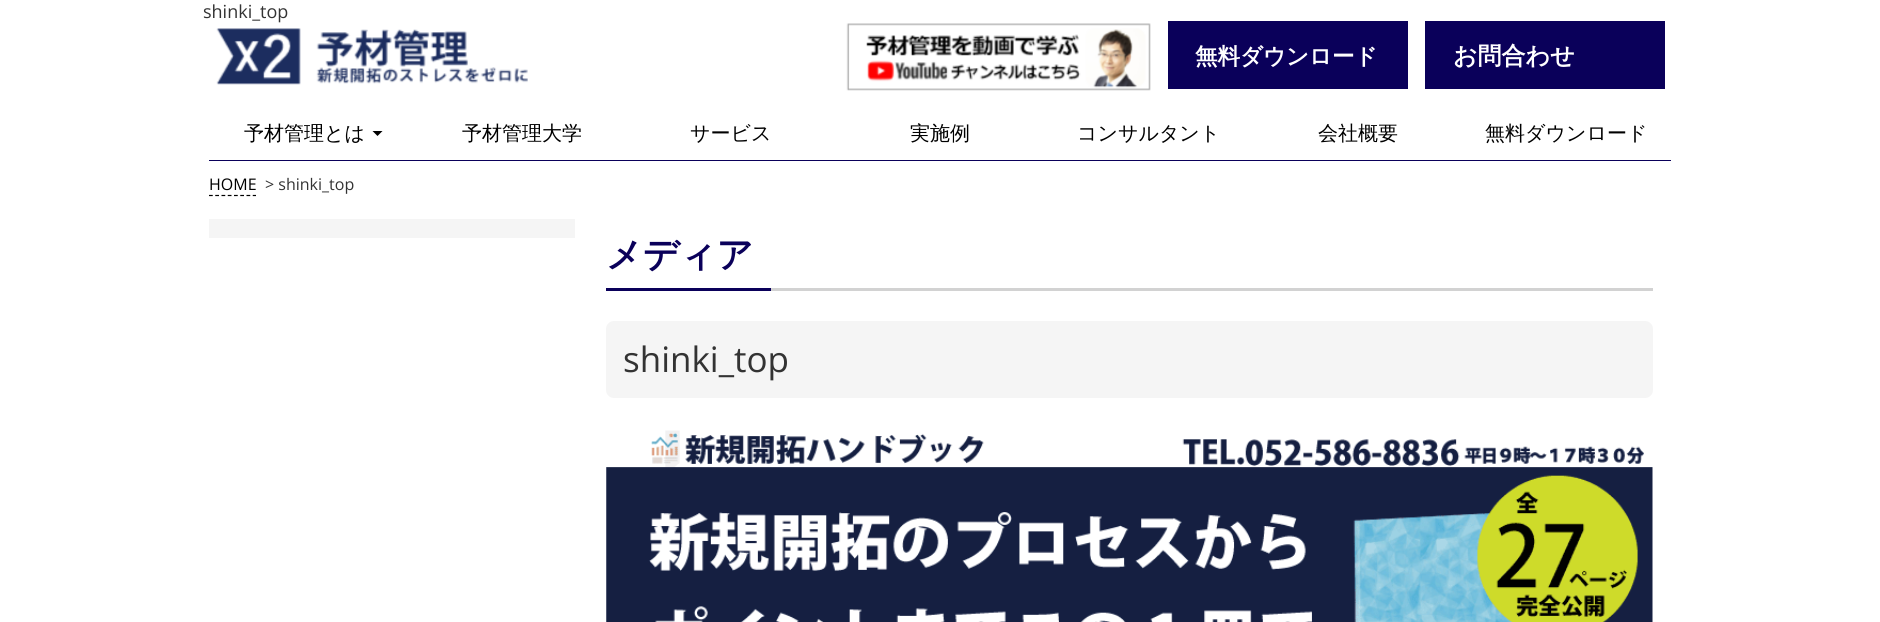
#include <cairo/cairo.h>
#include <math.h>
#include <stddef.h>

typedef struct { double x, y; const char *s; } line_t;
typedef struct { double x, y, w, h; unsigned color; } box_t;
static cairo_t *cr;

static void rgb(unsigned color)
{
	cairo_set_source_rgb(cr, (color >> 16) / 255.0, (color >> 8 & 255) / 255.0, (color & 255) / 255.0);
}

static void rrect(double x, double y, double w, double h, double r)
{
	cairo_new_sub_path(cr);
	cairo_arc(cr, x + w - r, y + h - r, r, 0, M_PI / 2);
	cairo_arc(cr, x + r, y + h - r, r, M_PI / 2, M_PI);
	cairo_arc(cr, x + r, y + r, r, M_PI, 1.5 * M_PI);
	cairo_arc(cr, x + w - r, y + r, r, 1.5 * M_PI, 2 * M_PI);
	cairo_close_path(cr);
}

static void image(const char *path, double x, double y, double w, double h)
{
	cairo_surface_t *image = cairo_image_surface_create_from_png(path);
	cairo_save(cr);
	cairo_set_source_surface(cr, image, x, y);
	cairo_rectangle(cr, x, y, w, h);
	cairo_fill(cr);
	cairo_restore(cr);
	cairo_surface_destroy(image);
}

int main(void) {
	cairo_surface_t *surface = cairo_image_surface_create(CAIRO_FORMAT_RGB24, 1880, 622);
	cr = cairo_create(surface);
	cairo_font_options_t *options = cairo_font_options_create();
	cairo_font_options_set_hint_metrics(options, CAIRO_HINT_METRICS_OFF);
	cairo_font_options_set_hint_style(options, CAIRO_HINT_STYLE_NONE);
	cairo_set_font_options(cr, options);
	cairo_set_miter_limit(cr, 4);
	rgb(0xffffff);
	cairo_paint(cr);
	image("img/1.png", 216, 28, 312, 57);
	image("img/2.png", 846, 23, 305, 68);
	{
		static const box_t items[] = {
			{1168, 21, 240, 68, 0x0a005a},
			{1425, 21, 240, 68, 0x0a005a},
			{209, 160, 1462, 1, 0x0a005a},
		};
		for (size_t i = 0; i < sizeof items / sizeof *items; i++) {
			rgb(items[i].color);
			cairo_rectangle(cr, items[i].x, items[i].y, items[i].w, items[i].h);
			cairo_fill(cr);
		}
	}
	rgb(0x000000);
	cairo_new_path(cr);
	cairo_move_to(cr, 372.5, 131);
	cairo_line_to(cr, 382.5, 131);
	cairo_line_to(cr, 377.5, 136);
	cairo_close_path(cr);
	cairo_fill(cr);
	cairo_new_path(cr);
	cairo_move_to(cr, 209, 195.5);
	cairo_line_to(cr, 256, 195.5);
	cairo_set_line_width(cr, 1.2);
	cairo_set_dash(cr, (double[]){3.75, 2.5}, 2, 0);
	cairo_stroke(cr);
	{
		static const box_t items[] = {
			{209, 219, 366, 19, 0xf5f5f5},
			{771, 288, 882, 3, 0xd2d2d2},
			{606, 288, 165, 3, 0x0a005a},
		};
		for (size_t i = 0; i < sizeof items / sizeof *items; i++) {
			rgb(items[i].color);
			cairo_rectangle(cr, items[i].x, items[i].y, items[i].w, items[i].h);
			cairo_fill(cr);
		}
	}
	rgb(0xf5f5f5);
	rrect(606, 321, 1047, 77, 8);
	cairo_fill(cr);
	image("img/3.png", 606, 430, 1047, 192);
	cairo_select_font_face(cr, "Open Sans", CAIRO_FONT_SLANT_NORMAL, CAIRO_FONT_WEIGHT_NORMAL);
	cairo_set_font_size(cr, 18);
	rgb(0x333333);
	cairo_move_to(cr, 203, 18);
	cairo_show_text(cr, "shinki_top");
	cairo_select_font_face(cr, "WenQuanYi Zen Hei", CAIRO_FONT_SLANT_NORMAL, CAIRO_FONT_WEIGHT_BOLD);
	cairo_set_font_size(cr, 22.5);
	rgb(0xffffff);
	cairo_move_to(cr, 1195, 64);
	cairo_show_text(cr, "無料ダウンロード");
	cairo_set_font_size(cr, 24);
	cairo_move_to(cr, 1453, 64);
	cairo_show_text(cr, "お問合わせ");
	cairo_select_font_face(cr, "WenQuanYi Zen Hei Medium", CAIRO_FONT_SLANT_NORMAL, CAIRO_FONT_WEIGHT_NORMAL);
	cairo_set_font_size(cr, 20);
	rgb(0x000000);
	{
		static const line_t items[] = {
			{244, 140, "予材管理とは"},
			{462, 140, "予材管理大学"},
			{690, 140, "サービス"},
			{910, 140, "実施例"},
			{1077, 140, "コンサルタント"},
			{1318, 140, "会社概要"},
			{1485, 140, "無料ダウンロード"},
		};
		for (size_t i = 0; i < sizeof items / sizeof *items; i++) {
			cairo_move_to(cr, items[i].x, items[i].y);
			cairo_show_text(cr, items[i].s);
		}
	}
	cairo_select_font_face(cr, "Open Sans", CAIRO_FONT_SLANT_NORMAL, CAIRO_FONT_WEIGHT_NORMAL);
	cairo_set_font_size(cr, 16);
	cairo_move_to(cr, 209, 190);
	cairo_show_text(cr, "HOME");
	rgb(0x333333);
	cairo_move_to(cr, 265, 190);
	cairo_show_text(cr, "> shinki_top");
	cairo_select_font_face(cr, "WenQuanYi Zen Hei", CAIRO_FONT_SLANT_NORMAL, CAIRO_FONT_WEIGHT_BOLD);
	cairo_set_font_size(cr, 36);
	rgb(0x0a005a);
	cairo_move_to(cr, 606, 267);
	cairo_show_text(cr, "メディア");
	cairo_select_font_face(cr, "Open Sans", CAIRO_FONT_SLANT_NORMAL, CAIRO_FONT_WEIGHT_NORMAL);
	cairo_set_font_size(cr, 35);
	rgb(0x333333);
	cairo_move_to(cr, 623, 372);
	cairo_show_text(cr, "shinki_top");
	cairo_surface_write_to_png(surface, "page.png");
	cairo_font_options_destroy(options);
	cairo_destroy(cr);
	cairo_surface_destroy(surface);
	return 0;
}
